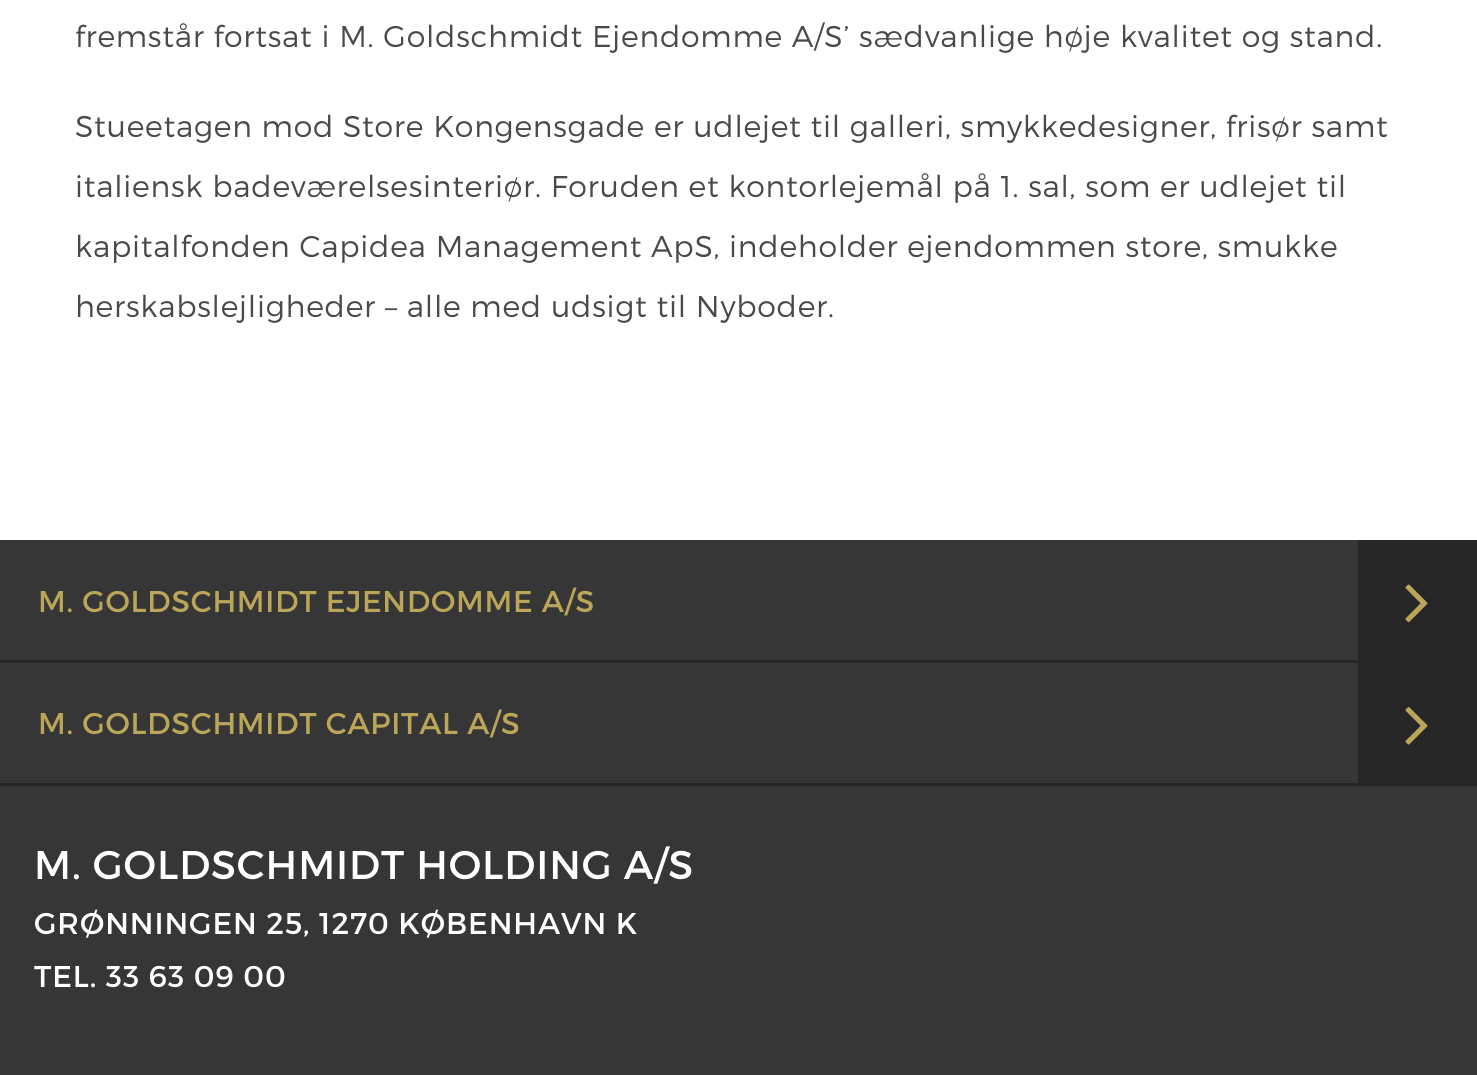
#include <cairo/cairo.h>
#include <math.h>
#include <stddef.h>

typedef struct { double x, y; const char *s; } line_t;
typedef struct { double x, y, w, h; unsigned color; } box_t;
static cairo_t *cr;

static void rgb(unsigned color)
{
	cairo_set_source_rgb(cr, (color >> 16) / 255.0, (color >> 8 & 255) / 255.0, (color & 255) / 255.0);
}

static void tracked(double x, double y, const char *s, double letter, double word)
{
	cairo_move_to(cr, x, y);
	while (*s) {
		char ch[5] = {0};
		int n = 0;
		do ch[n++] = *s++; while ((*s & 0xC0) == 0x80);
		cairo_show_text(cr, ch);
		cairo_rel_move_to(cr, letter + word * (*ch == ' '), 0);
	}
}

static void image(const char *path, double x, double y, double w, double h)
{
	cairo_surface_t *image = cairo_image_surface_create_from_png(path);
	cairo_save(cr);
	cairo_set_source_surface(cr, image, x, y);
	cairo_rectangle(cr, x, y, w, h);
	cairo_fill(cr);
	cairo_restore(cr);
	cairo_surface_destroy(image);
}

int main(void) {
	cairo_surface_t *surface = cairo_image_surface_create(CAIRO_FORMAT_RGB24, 1477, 1075);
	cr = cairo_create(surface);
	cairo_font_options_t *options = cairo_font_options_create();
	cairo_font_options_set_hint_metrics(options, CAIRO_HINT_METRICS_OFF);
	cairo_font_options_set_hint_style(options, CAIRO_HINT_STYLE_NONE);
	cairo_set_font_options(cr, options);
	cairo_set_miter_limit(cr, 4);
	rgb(0xffffff);
	cairo_paint(cr);
	{
		static const box_t items[] = {
			{0, 540, 1477, 535, 0x363636},
			{0, 660, 1358, 3, 0x262626},
			{1358, 540, 119, 243, 0x262626},
		};
		for (size_t i = 0; i < sizeof items / sizeof *items; i++) {
			rgb(items[i].color);
			cairo_rectangle(cr, items[i].x, items[i].y, items[i].w, items[i].h);
			cairo_fill(cr);
		}
	}
	image("img/1.png", 1405, 584, 23, 39);
	cairo_rectangle(cr, 0, 783, 1477, 3);
	cairo_fill(cr);
	image("img/2.png", 1405, 707, 23, 38);
	cairo_select_font_face(cr, "Montserrat Light", CAIRO_FONT_SLANT_NORMAL, CAIRO_FONT_WEIGHT_NORMAL);
	cairo_set_font_size(cr, 30);
	rgb(0x494949);
	{
		static const line_t items[] = {
			{75, 47, "fremstår fortsat i M. Goldschmidt Ejendomme A/S’ sædvanlige høje kvalitet og stand."},
			{75, 137, "Stueetagen mod Store Kongensgade er udlejet til galleri, smykkedesigner, frisør samt"},
			{75, 197, "italiensk badeværelsesinteriør. Foruden et kontorlejemål på 1. sal, som er udlejet til"},
			{75, 257, "kapitalfonden Capidea Management ApS, indeholder ejendommen store, smukke"},
			{75, 317, "herskabslejligheder – alle med udsigt til Nyboder."},
		};
		for (size_t i = 0; i < sizeof items / sizeof *items; i++) {
			tracked(items[i].x, items[i].y, items[i].s, 0.75, 0);
		}
	}
	cairo_select_font_face(cr, "Montserrat", CAIRO_FONT_SLANT_NORMAL, CAIRO_FONT_WEIGHT_NORMAL);
	rgb(0xbaa558);
	tracked(38, 612, "M. GOLDSCHMIDT EJENDOMME A/S", 0.75, 0);
	tracked(38, 734, "M. GOLDSCHMIDT CAPITAL A/S", 0.75, 0);
	cairo_set_font_size(cr, 40);
	rgb(0xffffff);
	tracked(34, 879, "M. GOLDSCHMIDT HOLDING A/S", 0.9, 0);
	cairo_set_font_size(cr, 30);
	tracked(34, 934, "GRØNNINGEN 25, 1270 KØBENHAVN K", 0.9, 0);
	tracked(34, 987, "TEL. 33 63 09 00", 0.9, 0);
	cairo_surface_write_to_png(surface, "page.png");
	cairo_font_options_destroy(options);
	cairo_destroy(cr);
	cairo_surface_destroy(surface);
	return 0;
}
